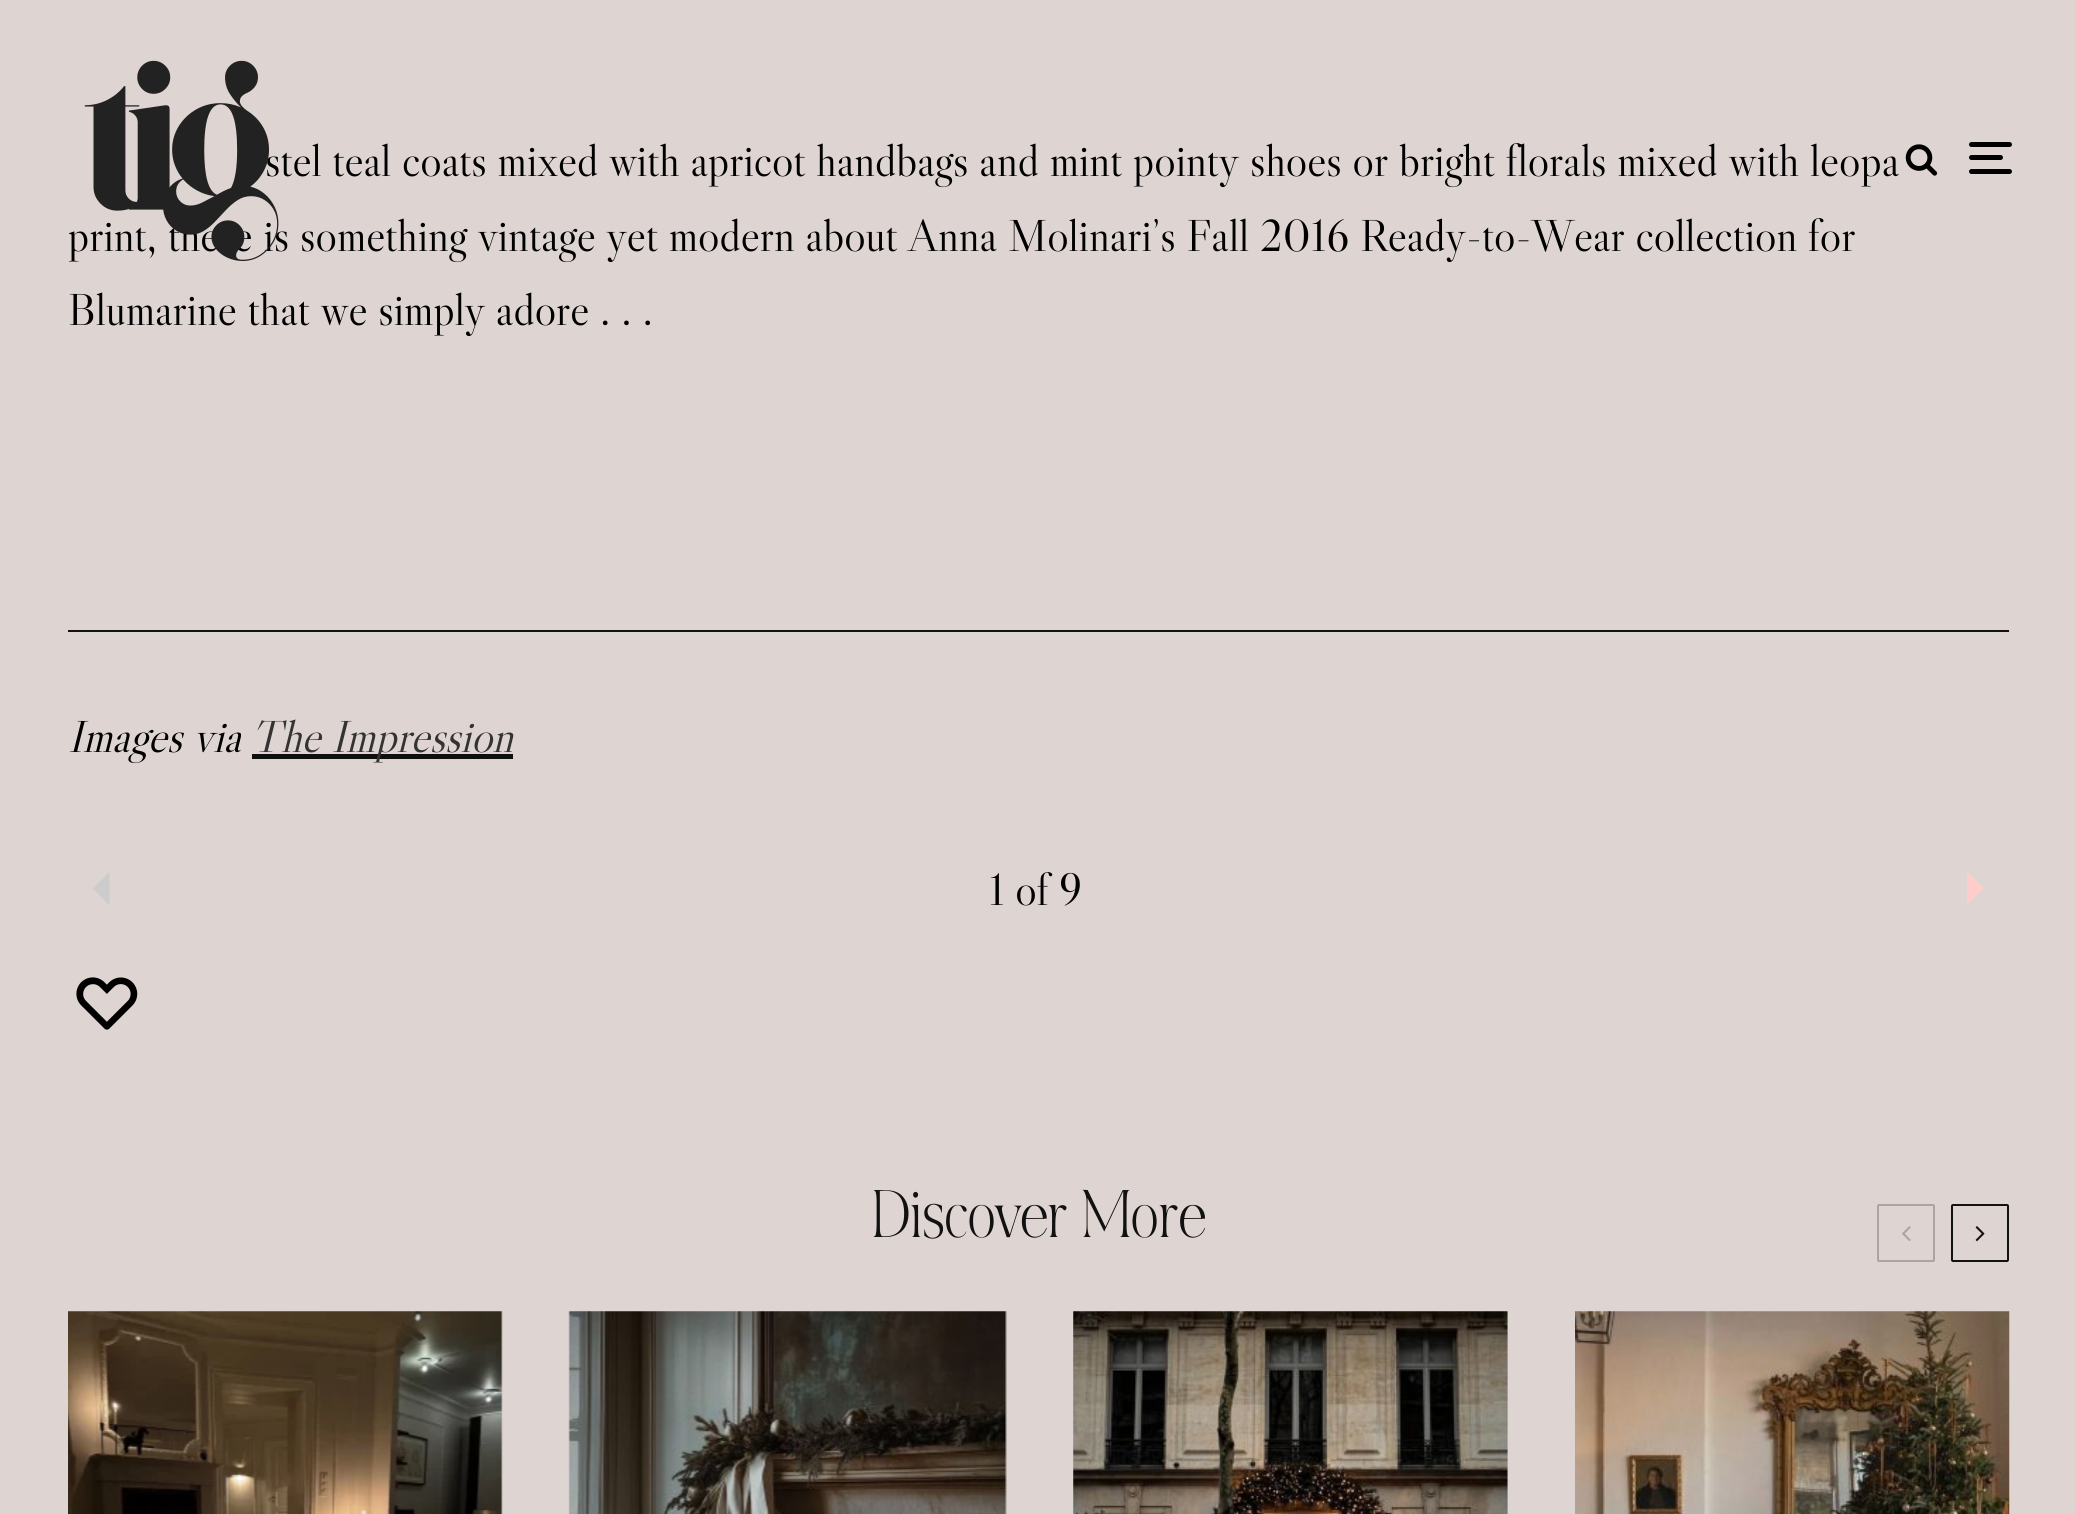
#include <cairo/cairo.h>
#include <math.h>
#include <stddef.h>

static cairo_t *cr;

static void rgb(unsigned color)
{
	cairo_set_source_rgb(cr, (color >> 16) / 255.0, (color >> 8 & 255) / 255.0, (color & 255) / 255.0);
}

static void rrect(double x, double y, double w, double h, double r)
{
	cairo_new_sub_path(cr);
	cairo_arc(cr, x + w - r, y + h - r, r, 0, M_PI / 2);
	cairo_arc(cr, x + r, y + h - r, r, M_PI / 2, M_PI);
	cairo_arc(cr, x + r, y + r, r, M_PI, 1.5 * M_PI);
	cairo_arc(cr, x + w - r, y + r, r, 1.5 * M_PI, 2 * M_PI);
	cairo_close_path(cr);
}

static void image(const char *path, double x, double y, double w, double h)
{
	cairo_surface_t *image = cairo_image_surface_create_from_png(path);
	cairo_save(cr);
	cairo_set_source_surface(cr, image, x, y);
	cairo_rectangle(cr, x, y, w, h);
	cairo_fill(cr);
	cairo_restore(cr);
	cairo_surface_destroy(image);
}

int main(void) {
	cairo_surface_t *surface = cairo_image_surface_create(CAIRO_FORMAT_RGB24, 2075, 1514);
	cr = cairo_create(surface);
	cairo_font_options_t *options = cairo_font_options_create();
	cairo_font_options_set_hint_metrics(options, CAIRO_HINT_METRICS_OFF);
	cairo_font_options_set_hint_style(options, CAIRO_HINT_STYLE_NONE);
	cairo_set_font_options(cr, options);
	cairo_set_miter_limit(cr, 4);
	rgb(0xded5d2);
	cairo_paint(cr);
	image("img/2.png", 1905, 144, 33, 32);
	rgb(0x000000);
	rrect(1969, 155, 34, 5, 2.5);
	cairo_fill(cr);
	rrect(1969, 142, 43, 5, 2.5);
	cairo_fill(cr);
	rrect(1969, 169, 43, 5, 2.5);
	cairo_fill(cr);
	rgb(0x111111);
	cairo_rectangle(cr, 68, 630, 1941, 2);
	cairo_fill(cr);
	rgb(0x0f0f0f);
	cairo_rectangle(cr, 252, 754, 261, 5);
	cairo_fill(cr);
	rgb(0xcccccc);
	cairo_new_path(cr);
	cairo_move_to(cr, 109.5, 871.5);
	cairo_line_to(cr, 93, 888.5);
	cairo_line_to(cr, 109.5, 905.5);
	cairo_close_path(cr);
	cairo_fill(cr);
	rgb(0xffcccc);
	cairo_new_path(cr);
	cairo_move_to(cr, 1967, 905.5);
	cairo_line_to(cr, 1984, 888.5);
	cairo_line_to(cr, 1967, 871.5);
	cairo_close_path(cr);
	cairo_fill(cr);
	image("img/3.png", 76, 977, 62, 53);
	rrect(1878, 1205, 56, 56, 1);
	rgb(0xaba4a2);
	cairo_stroke(cr);
	image("img/4.png", 1902, 1226, 9, 15);
	rrect(1952, 1205, 56, 56, 1);
	rgb(0x111111);
	cairo_stroke(cr);
	image("img/5.png", 1975, 1226, 10, 16);
	rgb(0xcdc4c1);
	cairo_rectangle(cr, 501, 1312, 1, 202);
	cairo_fill(cr);
	image("img/6.png", 68, 1311, 435, 203);
	cairo_rectangle(cr, 569, 1312, 437, 202);
	cairo_fill(cr);
	image("img/7.png", 568, 1311, 439, 203);
	cairo_rectangle(cr, 1073, 1312, 435, 202);
	cairo_fill(cr);
	image("img/8.png", 1073, 1311, 435, 203);
	image("img/9.png", 1575, 1311, 435, 203);
	cairo_select_font_face(cr, "Libre Caslon Display", CAIRO_FONT_SLANT_NORMAL, CAIRO_FONT_WEIGHT_NORMAL);
	cairo_set_font_size(cr, 45);
	rgb(0x000000);
	cairo_move_to(cr, 265, 176);
	cairo_show_text(cr, "stel teal coats mixed with apricot handbags and mint pointy shoes or bright florals mixed with leopa");
	cairo_move_to(cr, 68, 251);
	cairo_show_text(cr, "print, there is something vintage yet modern about Anna Molinari’s Fall 2016 Ready-to-Wear collection for");
	image("img/1.png", 84, 60, 195, 201);
	cairo_move_to(cr, 68, 325);
	cairo_show_text(cr, "Blumarine that we simply adore . . .");
	cairo_select_font_face(cr, "Libre Caslon Display", CAIRO_FONT_SLANT_ITALIC, CAIRO_FONT_WEIGHT_NORMAL);
	cairo_move_to(cr, 68, 752);
	cairo_show_text(cr, "Images via");
	rgb(0x333333);
	cairo_move_to(cr, 251, 752);
	cairo_show_text(cr, "The Impression");
	cairo_select_font_face(cr, "Libre Caslon Display", CAIRO_FONT_SLANT_NORMAL, CAIRO_FONT_WEIGHT_NORMAL);
	rgb(0x000000);
	cairo_move_to(cr, 989, 905);
	cairo_show_text(cr, "1 of 9");
	cairo_select_font_face(cr, "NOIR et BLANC", CAIRO_FONT_SLANT_NORMAL, CAIRO_FONT_WEIGHT_NORMAL);
	cairo_set_font_size(cr, 54);
	rgb(0x111111);
	cairo_move_to(cr, 872, 1237);
	cairo_show_text(cr, "Discover More");
	cairo_surface_write_to_png(surface, "page.png");
	cairo_font_options_destroy(options);
	cairo_destroy(cr);
	cairo_surface_destroy(surface);
	return 0;
}
